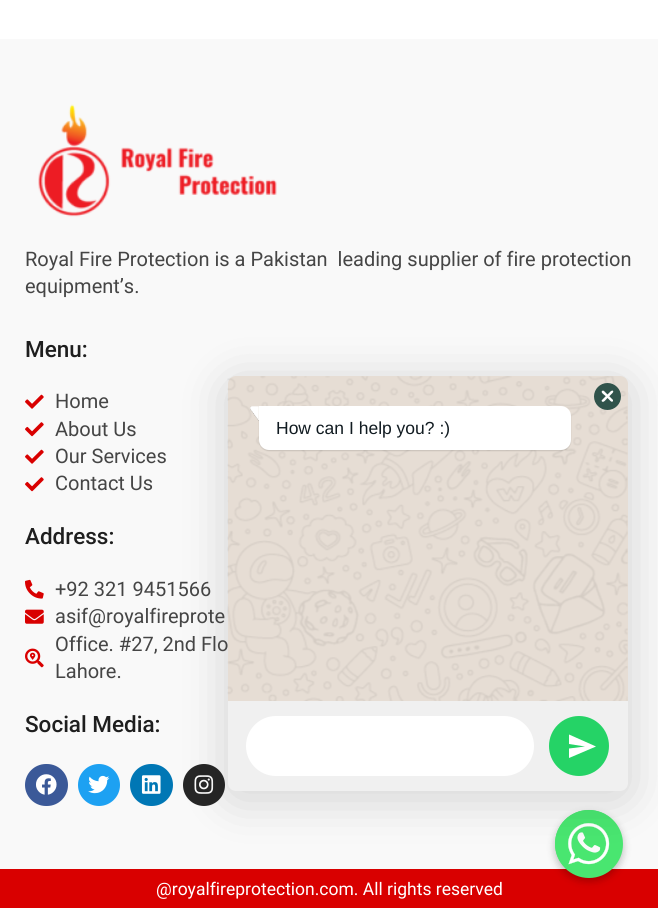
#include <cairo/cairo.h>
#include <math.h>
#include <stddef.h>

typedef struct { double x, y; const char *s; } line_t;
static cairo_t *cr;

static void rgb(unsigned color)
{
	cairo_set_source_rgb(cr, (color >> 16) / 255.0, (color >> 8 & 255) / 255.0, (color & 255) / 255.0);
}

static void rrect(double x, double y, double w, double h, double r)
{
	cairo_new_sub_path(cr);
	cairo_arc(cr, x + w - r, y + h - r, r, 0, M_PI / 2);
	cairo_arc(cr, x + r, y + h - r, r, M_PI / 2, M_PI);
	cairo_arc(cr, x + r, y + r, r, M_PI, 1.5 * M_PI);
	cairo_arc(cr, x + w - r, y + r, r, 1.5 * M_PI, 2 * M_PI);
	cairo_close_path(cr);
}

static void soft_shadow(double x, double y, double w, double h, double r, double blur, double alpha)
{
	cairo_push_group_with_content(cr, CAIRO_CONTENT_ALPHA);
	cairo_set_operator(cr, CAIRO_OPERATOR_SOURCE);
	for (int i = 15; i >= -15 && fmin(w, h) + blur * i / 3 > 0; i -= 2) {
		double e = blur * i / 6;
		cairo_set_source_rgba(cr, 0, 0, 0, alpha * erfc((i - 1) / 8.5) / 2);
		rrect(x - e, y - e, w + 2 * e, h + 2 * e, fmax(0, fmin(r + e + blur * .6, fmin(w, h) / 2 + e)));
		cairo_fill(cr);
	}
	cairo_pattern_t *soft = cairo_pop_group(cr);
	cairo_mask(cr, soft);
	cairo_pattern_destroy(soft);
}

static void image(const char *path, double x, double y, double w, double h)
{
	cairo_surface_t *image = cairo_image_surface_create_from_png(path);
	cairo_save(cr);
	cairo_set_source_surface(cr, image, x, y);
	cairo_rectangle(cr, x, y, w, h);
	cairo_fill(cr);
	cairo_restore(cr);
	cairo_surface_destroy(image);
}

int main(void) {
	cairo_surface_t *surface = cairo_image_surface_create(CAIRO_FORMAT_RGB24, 658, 908);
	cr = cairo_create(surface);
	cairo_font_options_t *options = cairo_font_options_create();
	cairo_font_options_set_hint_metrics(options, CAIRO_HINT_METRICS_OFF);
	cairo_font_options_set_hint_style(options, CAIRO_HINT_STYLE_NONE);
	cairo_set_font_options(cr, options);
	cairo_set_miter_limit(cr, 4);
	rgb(0xffffff);
	cairo_paint(cr);
	rgb(0xf9f9f9);
	cairo_rectangle(cr, 0, 39, 658, 830);
	cairo_fill(cr);
	image("img/1.png", 38, 104, 239, 113);
	image("img/2.png", 25, 394, 19, 15);
	image("img/3.png", 25, 422, 19, 15);
	image("img/2.png", 25, 449, 19, 15);
	image("img/3.png", 25, 477, 19, 15);
	image("img/4.png", 25, 579, 19, 20);
	image("img/5.png", 25, 609, 19, 15);
	image("img/6.png", 25, 648, 19, 20);
	rgb(0x3b5998);
	rrect(25, 764, 43, 42, 21);
	cairo_fill(cr);
	image("img/7.png", 36, 774, 21, 21);
	rgb(0x1da1f2);
	cairo_arc(cr, 99, 785, 21, 0, 2 * M_PI);
	cairo_fill(cr);
	image("img/8.png", 88, 775, 22, 19);
	rgb(0x0077b5);
	rrect(130, 764, 43, 42, 21);
	cairo_fill(cr);
	image("img/9.png", 141, 775, 20, 19);
	rgb(0x262626);
	cairo_arc(cr, 204, 785, 21, 0, 2 * M_PI);
	cairo_fill(cr);
	image("img/10.png", 194, 775, 20, 19);
	rgb(0xd90000);
	cairo_rectangle(cr, 0, 869, 658, 39);
	cairo_fill(cr);
	rgb(0x000000);
	soft_shadow(555, 814, 68, 67, 33.5, 4, 0.25);
	rgb(0x49e670);
	cairo_arc(cr, 589, 844, 34, 0, 2 * M_PI);
	cairo_fill(cr);
	image("img/13.png", 555, 810, 62, 62);
	rgb(0x000000);
	soft_shadow(228, 383, 400, 415, 8, 25, 0.16);
	rgb(0xe6ddd4);
	cairo_new_path(cr);
	cairo_move_to(cr, 236, 376);
	cairo_line_to(cr, 620, 376);
	cairo_curve_to(cr, 624.5, 376, 628, 379.5, 628, 384);
	cairo_line_to(cr, 628, 701);
	cairo_line_to(cr, 228, 701);
	cairo_line_to(cr, 228, 384);
	cairo_curve_to(cr, 228, 379.5, 231.5, 376, 236, 376);
	cairo_close_path(cr);
	cairo_fill(cr);
	rgb(0xf0f0f0);
	cairo_new_path(cr);
	cairo_move_to(cr, 228, 701);
	cairo_line_to(cr, 628, 701);
	cairo_line_to(cr, 628, 783);
	cairo_curve_to(cr, 628, 787.5, 624.5, 791, 620, 791);
	cairo_line_to(cr, 236, 791);
	cairo_curve_to(cr, 231.5, 791, 228, 787.5, 228, 783);
	cairo_close_path(cr);
	cairo_fill(cr);
	rgb(0xffffff);
	rrect(246, 716, 288, 60, 30);
	cairo_fill(cr);
	rgb(0x25d366);
	cairo_arc(cr, 579, 746, 30, 0, 2 * M_PI);
	cairo_fill(cr);
	rgb(0xffffff);
	cairo_new_path(cr);
	cairo_move_to(cr, 569, 758);
	cairo_line_to(cr, 596, 746.5);
	cairo_line_to(cr, 569, 734.5);
	cairo_line_to(cr, 569, 744);
	cairo_line_to(cr, 585, 746.5);
	cairo_line_to(cr, 569, 748.5);
	cairo_close_path(cr);
	cairo_fill(cr);
	cairo_select_font_face(cr, "Roboto", CAIRO_FONT_SLANT_NORMAL, CAIRO_FONT_WEIGHT_NORMAL);
	cairo_set_font_size(cr, 20);
	rgb(0x454545);
	cairo_move_to(cr, 25, 266);
	cairo_show_text(cr, "Royal Fire Protection is a Pakistan  leading supplier of fire protection");
	cairo_move_to(cr, 25, 293);
	cairo_show_text(cr, "equipment’s.");
	cairo_select_font_face(cr, "Roboto Medium", CAIRO_FONT_SLANT_NORMAL, CAIRO_FONT_WEIGHT_NORMAL);
	cairo_set_font_size(cr, 22.5);
	rgb(0x1e1e1e);
	cairo_move_to(cr, 25, 357);
	cairo_show_text(cr, "Menu:");
	cairo_select_font_face(cr, "Roboto", CAIRO_FONT_SLANT_NORMAL, CAIRO_FONT_WEIGHT_NORMAL);
	cairo_set_font_size(cr, 20);
	rgb(0x454545);
	{
		static const line_t items[] = {
			{55, 408, "Home"},
			{55, 436, "About Us"},
			{55, 463, "Our Services"},
			{55, 490, "Contact Us"},
		};
		for (size_t i = 0; i < sizeof items / sizeof *items; i++) {
			cairo_move_to(cr, items[i].x, items[i].y);
			cairo_show_text(cr, items[i].s);
		}
	}
	cairo_select_font_face(cr, "Roboto Medium", CAIRO_FONT_SLANT_NORMAL, CAIRO_FONT_WEIGHT_NORMAL);
	cairo_set_font_size(cr, 22.5);
	rgb(0x1e1e1e);
	cairo_move_to(cr, 25, 544);
	cairo_show_text(cr, "Address:");
	cairo_select_font_face(cr, "Roboto", CAIRO_FONT_SLANT_NORMAL, CAIRO_FONT_WEIGHT_NORMAL);
	cairo_set_font_size(cr, 20);
	rgb(0x454545);
	{
		static const line_t items[] = {
			{55, 596, "+92 321 9451566"},
			{55, 623, "asif@royalfireprote"},
			{55, 651, "Office. #27, 2nd Flo"},
			{55, 678, "Lahore."},
		};
		for (size_t i = 0; i < sizeof items / sizeof *items; i++) {
			cairo_move_to(cr, items[i].x, items[i].y);
			cairo_show_text(cr, items[i].s);
		}
	}
	cairo_select_font_face(cr, "Roboto Medium", CAIRO_FONT_SLANT_NORMAL, CAIRO_FONT_WEIGHT_NORMAL);
	cairo_set_font_size(cr, 22.5);
	rgb(0x1e1e1e);
	cairo_move_to(cr, 25, 732);
	cairo_show_text(cr, "Social Media:");
	cairo_select_font_face(cr, "Roboto", CAIRO_FONT_SLANT_NORMAL, CAIRO_FONT_WEIGHT_NORMAL);
	cairo_set_font_size(cr, 17.5);
	rgb(0xffffff);
	cairo_move_to(cr, 156, 895);
	cairo_show_text(cr, "@royalfireprotection.com. All rights reserved");
	image("img/11.png", 227, 376, 401, 325);
	rgb(0x30534b);
	cairo_arc(cr, 607.5, 396.5, 13.5, 0, 2 * M_PI);
	cairo_fill(cr);
	rgb(0xffffff);
	cairo_new_path(cr);
	cairo_move_to(cr, 604, 391);
	cairo_line_to(cr, 613, 400);
	cairo_line_to(cr, 613, 401);
	cairo_curve_to(cr, 612, 403, 610, 400.5, 609.5, 400);
	cairo_line_to(cr, 605, 395.5);
	cairo_curve_to(cr, 604.5, 395, 600.5, 392.5, 602, 391);
	cairo_curve_to(cr, 602.5, 390.5, 603.5, 390.5, 604, 391);
	cairo_close_path(cr);
	cairo_fill(cr);
	cairo_new_path(cr);
	cairo_move_to(cr, 602, 400);
	cairo_line_to(cr, 611, 391);
	cairo_line_to(cr, 612.5, 390.5);
	cairo_curve_to(cr, 614.5, 391.5, 612, 393.5, 611.5, 394);
	cairo_line_to(cr, 607, 398.5);
	cairo_curve_to(cr, 606, 399.5, 603.5, 403, 602, 401.5);
	cairo_curve_to(cr, 601.5, 401, 601.5, 400.5, 602, 400);
	cairo_close_path(cr);
	cairo_fill(cr);
	rgb(0x000000);
	soft_shadow(259, 408, 312, 43, 10, 0.5, 0.13);
	rgb(0xffffff);
	cairo_new_path(cr);
	cairo_move_to(cr, 259, 406);
	cairo_line_to(cr, 561, 406);
	cairo_curve_to(cr, 566.5, 406, 571, 410.5, 571, 416);
	cairo_line_to(cr, 571, 440);
	cairo_curve_to(cr, 571, 445.5, 566.5, 450, 561, 450);
	cairo_line_to(cr, 269, 450);
	cairo_curve_to(cr, 263.5, 450, 259, 445.5, 259, 440);
	cairo_close_path(cr);
	cairo_fill(cr);
	image("img/12.png", 250, 406, 9, 15);
	cairo_select_font_face(cr, "Liberation Sans", CAIRO_FONT_SLANT_NORMAL, CAIRO_FONT_WEIGHT_NORMAL);
	rgb(0x111b21);
	cairo_move_to(cr, 276, 434);
	cairo_show_text(cr, "How can I help you? :)");
	cairo_surface_write_to_png(surface, "page.png");
	cairo_font_options_destroy(options);
	cairo_destroy(cr);
	cairo_surface_destroy(surface);
	return 0;
}
